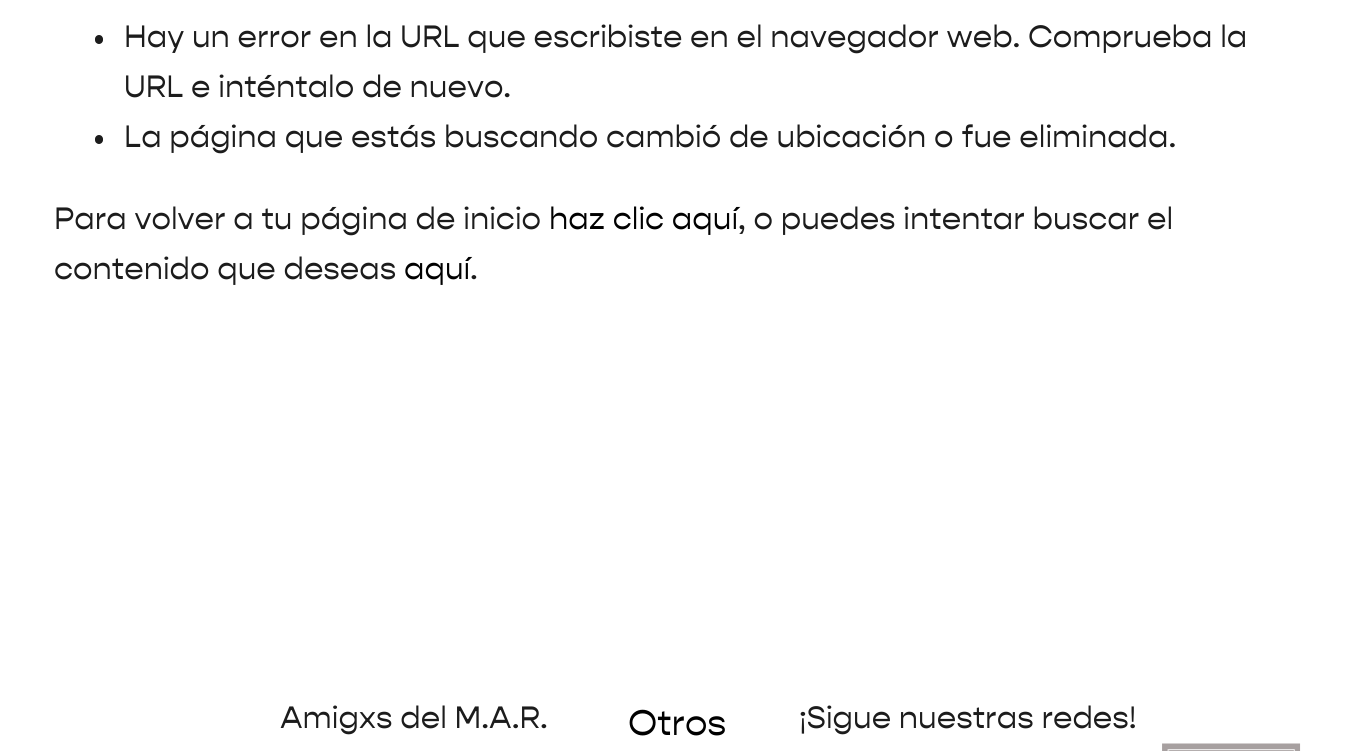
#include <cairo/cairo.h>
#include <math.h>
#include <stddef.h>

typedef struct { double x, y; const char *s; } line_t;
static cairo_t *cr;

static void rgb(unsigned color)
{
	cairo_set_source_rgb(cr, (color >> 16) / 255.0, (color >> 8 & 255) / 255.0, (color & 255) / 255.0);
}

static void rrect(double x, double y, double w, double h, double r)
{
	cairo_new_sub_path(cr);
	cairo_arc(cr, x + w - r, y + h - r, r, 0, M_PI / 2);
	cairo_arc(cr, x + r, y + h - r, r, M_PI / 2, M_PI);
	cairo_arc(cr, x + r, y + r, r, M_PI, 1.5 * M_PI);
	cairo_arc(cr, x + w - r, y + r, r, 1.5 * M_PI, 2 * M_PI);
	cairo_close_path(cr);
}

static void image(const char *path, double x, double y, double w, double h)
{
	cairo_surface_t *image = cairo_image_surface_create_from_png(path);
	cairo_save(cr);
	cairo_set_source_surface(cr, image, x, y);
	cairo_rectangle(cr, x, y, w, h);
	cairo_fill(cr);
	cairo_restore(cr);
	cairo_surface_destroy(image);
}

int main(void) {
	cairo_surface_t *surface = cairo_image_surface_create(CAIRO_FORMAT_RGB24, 1354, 751);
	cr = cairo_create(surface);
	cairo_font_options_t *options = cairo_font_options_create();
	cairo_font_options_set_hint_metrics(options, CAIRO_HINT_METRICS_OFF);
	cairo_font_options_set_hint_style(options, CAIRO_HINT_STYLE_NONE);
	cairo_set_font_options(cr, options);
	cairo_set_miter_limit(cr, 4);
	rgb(0xffffff);
	cairo_paint(cr);
	rgb(0x1c1c1c);
	rrect(95, 35, 8, 9, 4);
	cairo_fill(cr);
	rrect(95, 135, 8, 9, 4);
	cairo_fill(cr);
	image("img/1.png", 1162, 743, 139, 8);
	cairo_select_font_face(cr, "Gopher", CAIRO_FONT_SLANT_NORMAL, CAIRO_FONT_WEIGHT_NORMAL);
	cairo_set_font_size(cr, 31.25);
	{
		static const line_t items[] = {
			{124, 47, "Hay un error en la URL que escribiste en el navegador web. Comprueba la"},
			{124, 97, "URL e inténtalo de nuevo."},
			{124, 147, "La página que estás buscando cambió de ubicación o fue eliminada."},
			{54, 229, "Para volver a tu página de inicio"},
		};
		for (size_t i = 0; i < sizeof items / sizeof *items; i++) {
			cairo_move_to(cr, items[i].x, items[i].y);
			cairo_show_text(cr, items[i].s);
		}
	}
	rgb(0x000000);
	cairo_move_to(cr, 549, 229);
	cairo_show_text(cr, "haz clic aquí");
	rgb(0x1c1c1c);
	cairo_move_to(cr, 738, 229);
	cairo_show_text(cr, ", o puedes intentar buscar el");
	cairo_move_to(cr, 54, 279);
	cairo_show_text(cr, "contenido que deseas");
	rgb(0x000000);
	cairo_move_to(cr, 404, 279);
	cairo_show_text(cr, "aquí");
	rgb(0x1c1c1c);
	cairo_move_to(cr, 470, 279);
	cairo_show_text(cr, ".");
	cairo_move_to(cr, 280, 728);
	cairo_show_text(cr, "Amigxs del M.A.R.");
	cairo_set_font_size(cr, 36);
	rgb(0x000000);
	cairo_move_to(cr, 628, 735);
	cairo_show_text(cr, "Otros");
	cairo_set_font_size(cr, 31.25);
	rgb(0x1c1c1c);
	cairo_move_to(cr, 799, 728);
	cairo_show_text(cr, "¡Sigue nuestras redes!");
	cairo_surface_write_to_png(surface, "page.png");
	cairo_font_options_destroy(options);
	cairo_destroy(cr);
	cairo_surface_destroy(surface);
	return 0;
}
